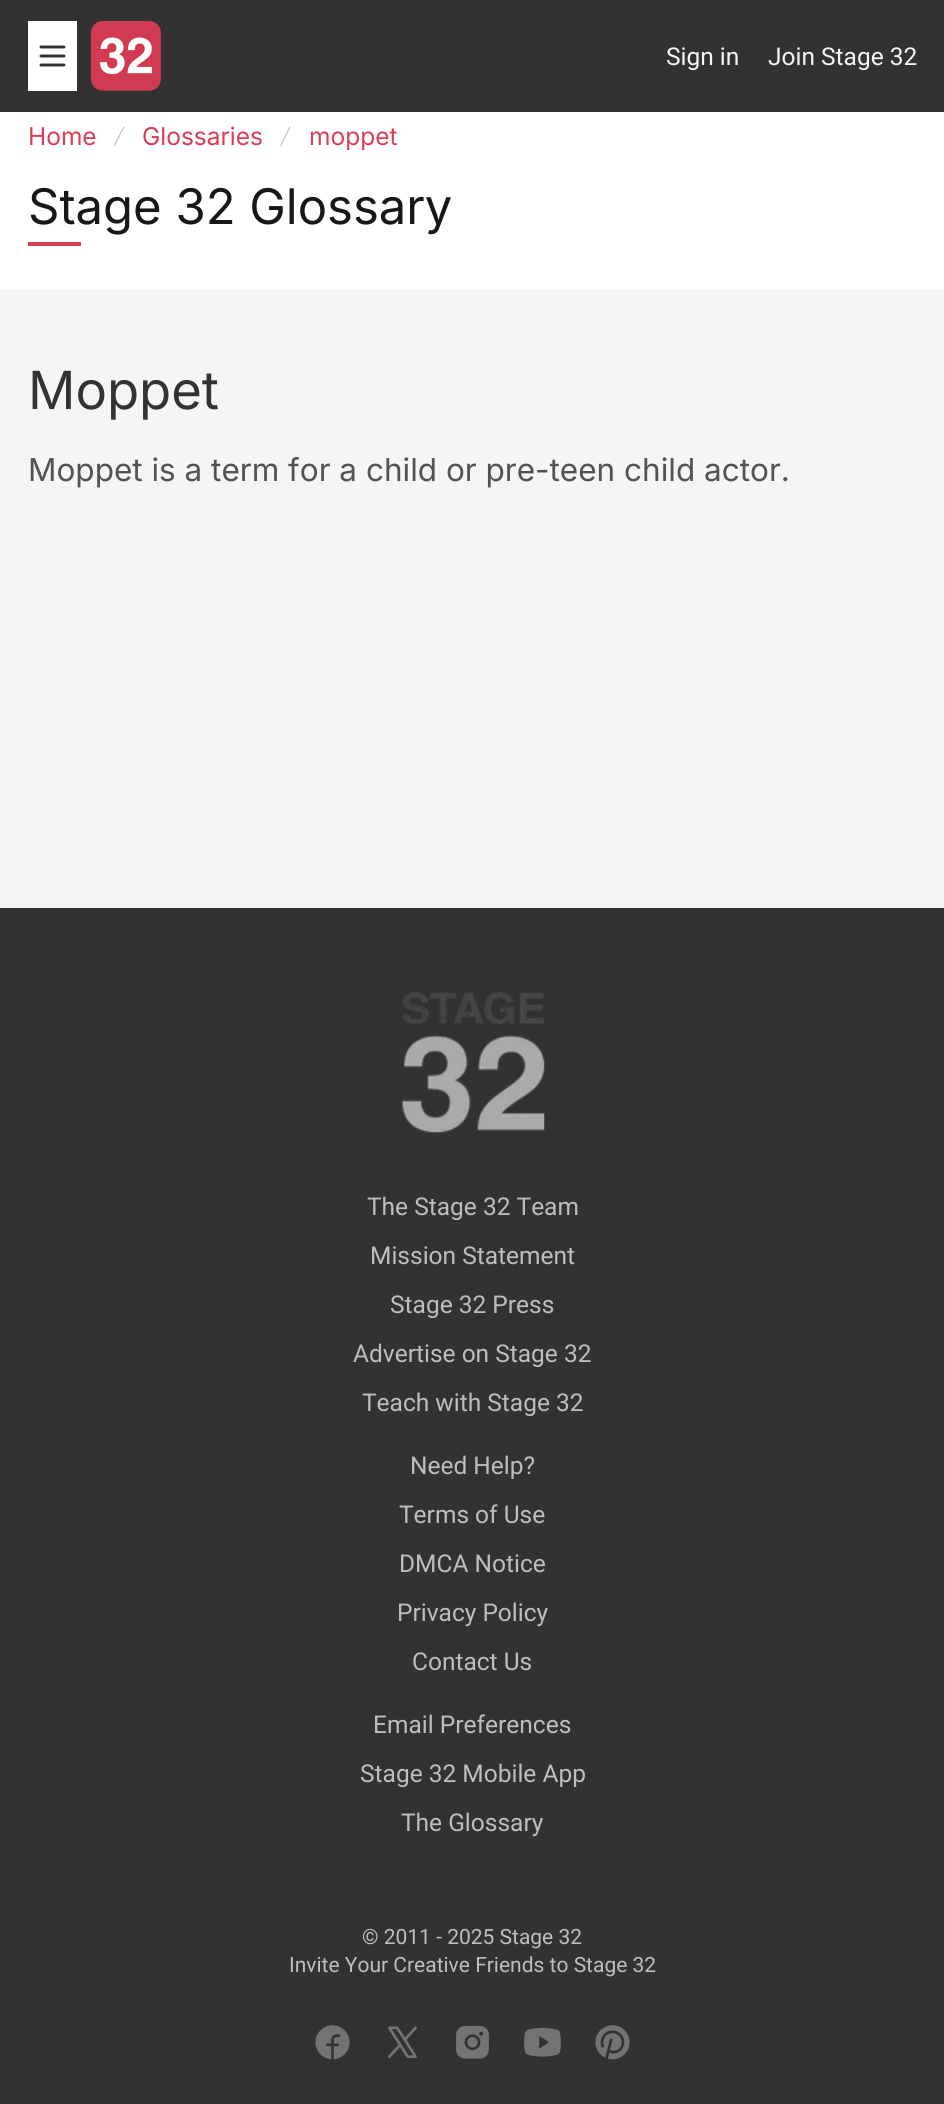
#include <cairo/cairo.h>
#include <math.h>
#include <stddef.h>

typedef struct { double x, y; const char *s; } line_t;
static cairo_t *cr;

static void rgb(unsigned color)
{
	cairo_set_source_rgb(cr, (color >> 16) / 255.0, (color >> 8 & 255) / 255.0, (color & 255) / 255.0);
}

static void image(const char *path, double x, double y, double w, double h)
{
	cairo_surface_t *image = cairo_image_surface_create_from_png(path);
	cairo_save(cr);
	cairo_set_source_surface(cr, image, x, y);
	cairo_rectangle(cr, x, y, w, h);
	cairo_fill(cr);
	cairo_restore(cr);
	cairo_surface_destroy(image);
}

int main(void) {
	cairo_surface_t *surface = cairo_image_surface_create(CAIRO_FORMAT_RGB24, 944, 2104);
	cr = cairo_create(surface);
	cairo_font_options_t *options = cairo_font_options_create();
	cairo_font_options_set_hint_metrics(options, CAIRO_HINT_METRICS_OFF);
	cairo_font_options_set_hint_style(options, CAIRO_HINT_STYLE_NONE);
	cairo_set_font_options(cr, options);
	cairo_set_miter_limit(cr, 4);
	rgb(0xf5f5f5);
	cairo_paint(cr);
	rgb(0x323232);
	cairo_rectangle(cr, 0, 0, 944, 112);
	cairo_fill(cr);
	rgb(0xffffff);
	cairo_rectangle(cr, 28, 21, 49, 70);
	cairo_fill(cr);
	cairo_new_path(cr);
	cairo_move_to(cr, 41, 47);
	cairo_line_to(cr, 64, 47);
	cairo_move_to(cr, 41, 56);
	cairo_line_to(cr, 64, 56);
	cairo_move_to(cr, 41, 65);
	cairo_line_to(cr, 64, 65);
	rgb(0x323232);
	cairo_set_line_width(cr, 2.9);
	cairo_set_line_cap(cr, CAIRO_LINE_CAP_ROUND);
	cairo_set_line_join(cr, CAIRO_LINE_JOIN_ROUND);
	cairo_stroke(cr);
	image("img/1.png", 91, 21, 70, 70);
	rgb(0xffffff);
	cairo_rectangle(cr, 0, 112, 944, 177);
	cairo_fill(cr);
	rgb(0xbebebe);
	cairo_new_path(cr);
	cairo_move_to(cr, 113.5, 146);
	cairo_line_to(cr, 123.5, 126.5);
	cairo_line_to(cr, 124.5, 127);
	cairo_line_to(cr, 114.5, 146.5);
	cairo_close_path(cr);
	cairo_fill(cr);
	cairo_new_path(cr);
	cairo_move_to(cr, 280, 146);
	cairo_line_to(cr, 289.5, 126.5);
	cairo_line_to(cr, 290.5, 127);
	cairo_line_to(cr, 281, 146.5);
	cairo_close_path(cr);
	cairo_fill(cr);
	rgb(0xda3e55);
	cairo_rectangle(cr, 28, 242, 53, 4);
	cairo_fill(cr);
	rgb(0x323232);
	cairo_rectangle(cr, 0, 908, 944, 1196);
	cairo_fill(cr);
	image("img/2.png", 402, 992, 143, 141);
	image("img/3.png", 315, 2025, 35, 35);
	image("img/4.png", 388, 2026, 29, 32);
	image("img/5.png", 456, 2025, 33, 34);
	image("img/6.png", 524, 2027, 37, 30);
	image("img/7.png", 595, 2025, 35, 35);
	cairo_select_font_face(cr, "Roboto", CAIRO_FONT_SLANT_NORMAL, CAIRO_FONT_WEIGHT_NORMAL);
	cairo_set_font_size(cr, 24.5);
	rgb(0xf5f5f5);
	cairo_move_to(cr, 666, 65);
	cairo_show_text(cr, "Sign in");
	cairo_move_to(cr, 768, 65);
	cairo_show_text(cr, "Join Stage 32");
	cairo_select_font_face(cr, "Inter", CAIRO_FONT_SLANT_NORMAL, CAIRO_FONT_WEIGHT_NORMAL);
	rgb(0xda3e55);
	{
		static const line_t items[] = {
			{28, 145, "Home"},
			{142, 145, "Glossaries"},
			{309, 145, "moppet"},
		};
		for (size_t i = 0; i < sizeof items / sizeof *items; i++) {
			cairo_move_to(cr, items[i].x, items[i].y);
			cairo_show_text(cr, items[i].s);
		}
	}
	cairo_set_font_size(cr, 49);
	rgb(0x171717);
	cairo_move_to(cr, 28, 224);
	cairo_show_text(cr, "Stage 32 Glossary");
	cairo_set_font_size(cr, 52.5);
	rgb(0x323232);
	cairo_move_to(cr, 28, 409);
	cairo_show_text(cr, "Moppet");
	cairo_set_font_size(cr, 31.5);
	rgb(0x525252);
	cairo_move_to(cr, 28, 481);
	cairo_show_text(cr, "Moppet is a term for a child or pre-teen child actor.");
	cairo_select_font_face(cr, "Roboto", CAIRO_FONT_SLANT_NORMAL, CAIRO_FONT_WEIGHT_NORMAL);
	cairo_set_font_size(cr, 24.5);
	rgb(0xbebebe);
	{
		static const line_t items[] = {
			{367, 1215, "The Stage 32 Team"},
			{370, 1264, "Mission Statement"},
			{390, 1313, "Stage 32 Press"},
			{353, 1362, "Advertise on Stage 32"},
			{362, 1411, "Teach with Stage 32"},
			{410, 1474, "Need Help?"},
			{399, 1523, "Terms of Use"},
			{399, 1572, "DMCA Notice"},
			{397, 1621, "Privacy Policy"},
			{412, 1670, "Contact Us"},
			{373, 1733, "Email Preferences"},
			{360, 1782, "Stage 32 Mobile App"},
			{401, 1831, "The Glossary"},
		};
		for (size_t i = 0; i < sizeof items / sizeof *items; i++) {
			cairo_move_to(cr, items[i].x, items[i].y);
			cairo_show_text(cr, items[i].s);
		}
	}
	cairo_set_font_size(cr, 21);
	cairo_move_to(cr, 362, 1944);
	cairo_show_text(cr, "© 2011 - 2025 Stage 32");
	cairo_move_to(cr, 289, 1972);
	cairo_show_text(cr, "Invite Your Creative Friends to Stage 32");
	cairo_surface_write_to_png(surface, "page.png");
	cairo_font_options_destroy(options);
	cairo_destroy(cr);
	cairo_surface_destroy(surface);
	return 0;
}
